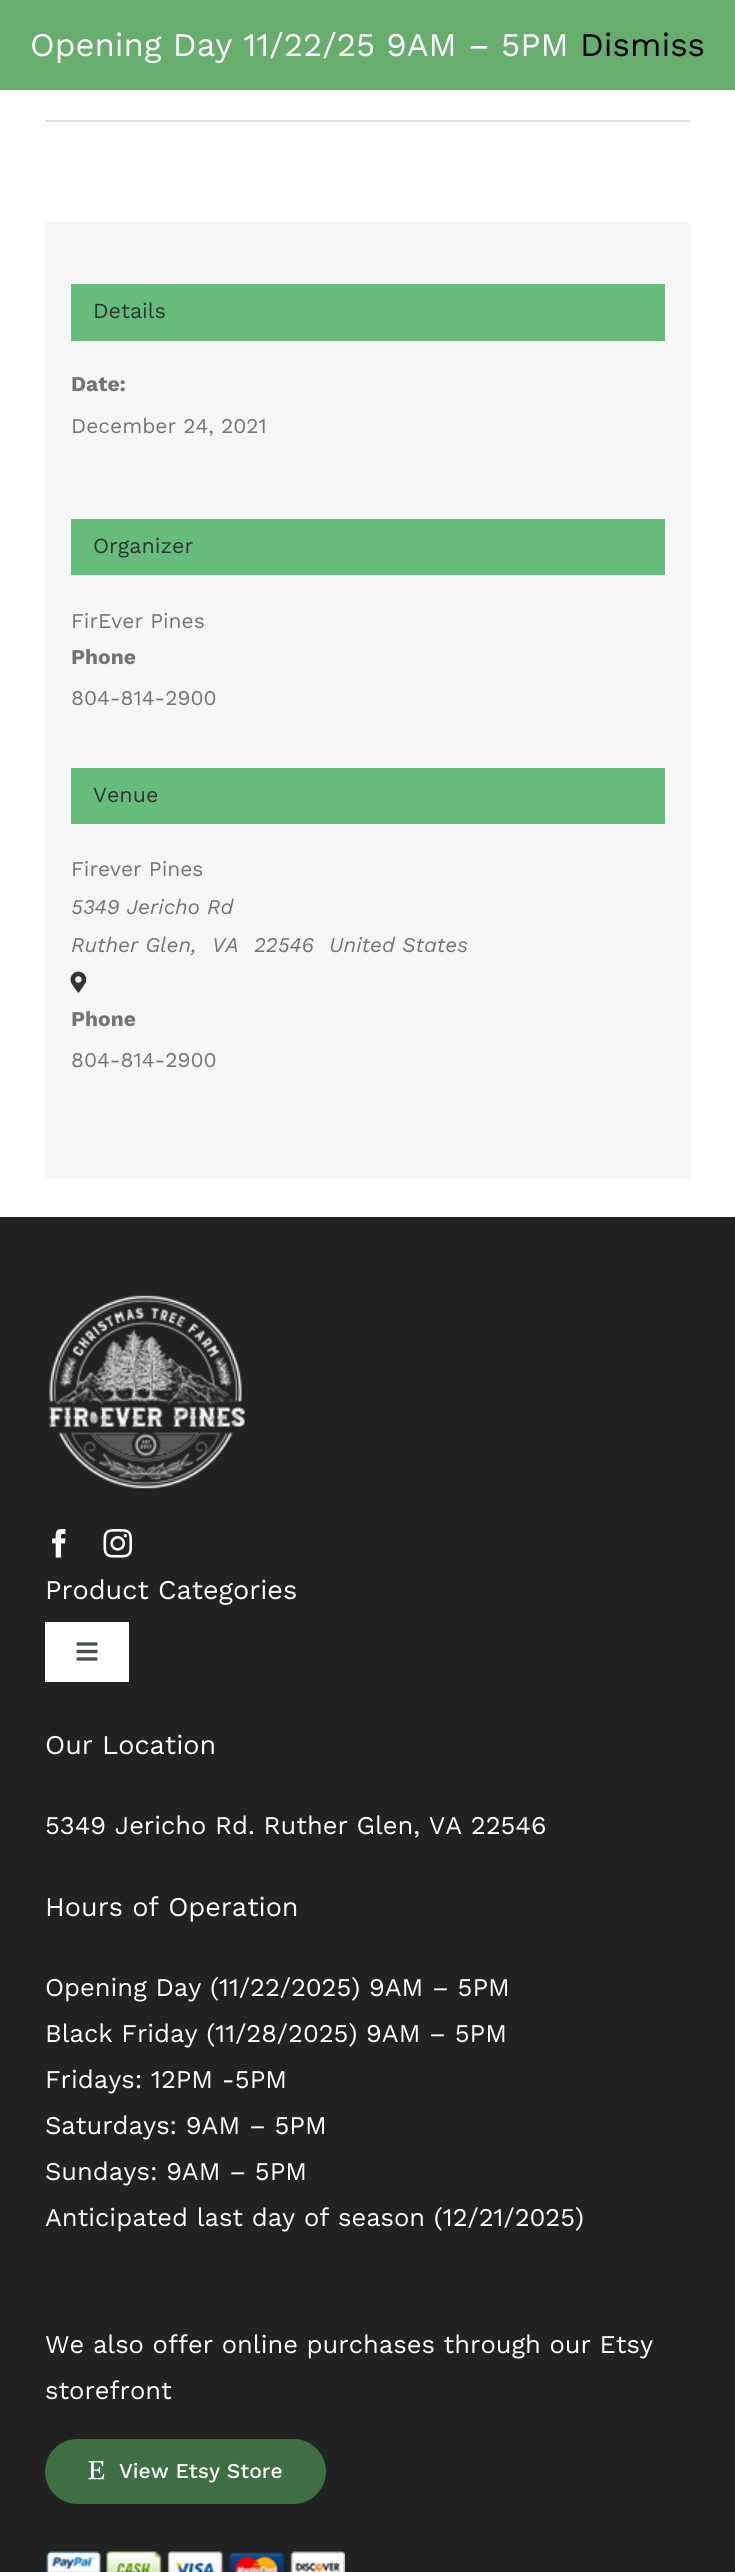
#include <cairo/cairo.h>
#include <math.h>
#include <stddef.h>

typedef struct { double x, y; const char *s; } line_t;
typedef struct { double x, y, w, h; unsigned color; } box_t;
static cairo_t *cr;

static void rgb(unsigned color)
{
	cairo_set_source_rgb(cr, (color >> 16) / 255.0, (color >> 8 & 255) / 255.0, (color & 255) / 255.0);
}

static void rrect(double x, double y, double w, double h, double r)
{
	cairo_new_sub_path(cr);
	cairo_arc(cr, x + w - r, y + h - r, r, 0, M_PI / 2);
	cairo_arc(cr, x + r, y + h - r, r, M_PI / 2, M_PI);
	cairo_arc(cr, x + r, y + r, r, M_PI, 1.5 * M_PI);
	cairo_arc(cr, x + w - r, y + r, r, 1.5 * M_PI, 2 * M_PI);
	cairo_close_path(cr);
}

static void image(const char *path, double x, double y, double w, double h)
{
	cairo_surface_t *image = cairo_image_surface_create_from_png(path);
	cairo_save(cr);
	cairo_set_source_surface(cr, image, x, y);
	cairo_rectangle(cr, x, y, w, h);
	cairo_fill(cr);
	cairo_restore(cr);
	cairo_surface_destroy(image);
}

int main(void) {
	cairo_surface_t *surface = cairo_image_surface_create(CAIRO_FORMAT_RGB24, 735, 2572);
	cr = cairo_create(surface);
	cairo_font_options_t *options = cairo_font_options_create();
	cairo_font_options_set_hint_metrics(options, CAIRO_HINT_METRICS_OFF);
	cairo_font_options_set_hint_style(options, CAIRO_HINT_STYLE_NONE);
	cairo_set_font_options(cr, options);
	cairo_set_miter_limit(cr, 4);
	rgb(0xffffff);
	cairo_paint(cr);
	{
		static const box_t items[] = {
			{0, 0, 735, 90, 0x67ad6e},
			{45, 120, 645, 2, 0xe0dede},
			{45, 222, 645, 957, 0xf6f6f6},
			{71, 284, 594, 57, 0x65bc7b},
			{71, 519, 594, 56, 0x65bc7b},
			{71, 768, 594, 56, 0x65bc7b},
		};
		for (size_t i = 0; i < sizeof items / sizeof *items; i++) {
			rgb(items[i].color);
			cairo_rectangle(cr, items[i].x, items[i].y, items[i].w, items[i].h);
			cairo_fill(cr);
		}
	}
	image("img/1.png", 70, 971, 17, 22);
	rgb(0x222222);
	cairo_rectangle(cr, 0, 1217, 735, 1355);
	cairo_fill(cr);
	image("img/2.png", 49, 1295, 196, 194);
	image("img/3.png", 52, 1529, 14, 29);
	image("img/4.png", 103, 1529, 29, 29);
	rgb(0xffffff);
	cairo_rectangle(cr, 45, 1622, 84, 60);
	cairo_fill(cr);
	image("img/5.png", 76, 1642, 22, 19);
	rgb(0x3d6f42);
	rrect(45, 2439, 281, 65, 32.5);
	cairo_fill(cr);
	image("img/6.png", 88, 2460, 17, 20);
	image("img/7.png", 46, 2551, 299, 21);
	cairo_select_font_face(cr, "Work Sans", CAIRO_FONT_SLANT_NORMAL, CAIRO_FONT_WEIGHT_NORMAL);
	cairo_set_font_size(cr, 33);
	rgb(0xffffff);
	cairo_move_to(cr, 30, 56);
	cairo_show_text(cr, "Opening Day 11/22/25 9AM – 5PM");
	rgb(0x000000);
	cairo_move_to(cr, 580, 56);
	cairo_show_text(cr, "Dismiss");
	cairo_set_font_size(cr, 21.5);
	rgb(0x333333);
	cairo_move_to(cr, 93, 318);
	cairo_show_text(cr, "Details");
	cairo_select_font_face(cr, "Work Sans", CAIRO_FONT_SLANT_NORMAL, CAIRO_FONT_WEIGHT_BOLD);
	cairo_set_font_size(cr, 21);
	rgb(0x747474);
	cairo_move_to(cr, 71, 391);
	cairo_show_text(cr, "Date:");
	cairo_select_font_face(cr, "Work Sans", CAIRO_FONT_SLANT_NORMAL, CAIRO_FONT_WEIGHT_NORMAL);
	cairo_move_to(cr, 71, 433);
	cairo_show_text(cr, "December 24, 2021");
	cairo_set_font_size(cr, 21.5);
	rgb(0x333333);
	cairo_move_to(cr, 93, 553);
	cairo_show_text(cr, "Organizer");
	cairo_set_font_size(cr, 21);
	rgb(0x747474);
	cairo_move_to(cr, 71, 628);
	cairo_show_text(cr, "FirEver Pines");
	cairo_select_font_face(cr, "Work Sans", CAIRO_FONT_SLANT_NORMAL, CAIRO_FONT_WEIGHT_BOLD);
	cairo_move_to(cr, 71, 664);
	cairo_show_text(cr, "Phone");
	cairo_select_font_face(cr, "Work Sans", CAIRO_FONT_SLANT_NORMAL, CAIRO_FONT_WEIGHT_NORMAL);
	cairo_move_to(cr, 71, 705);
	cairo_show_text(cr, "804-814-2900");
	cairo_set_font_size(cr, 21.5);
	rgb(0x333333);
	cairo_move_to(cr, 93, 802);
	cairo_show_text(cr, "Venue");
	cairo_set_font_size(cr, 21);
	rgb(0x747474);
	cairo_move_to(cr, 71, 876);
	cairo_show_text(cr, "Firever Pines");
	cairo_select_font_face(cr, "Work Sans", CAIRO_FONT_SLANT_ITALIC, CAIRO_FONT_WEIGHT_NORMAL);
	{
		static const line_t items[] = {
			{71, 914, "5349 Jericho Rd"},
			{71, 952, "Ruther Glen,"},
			{212, 952, "VA"},
			{254, 952, "22546"},
			{329, 952, "United States"},
		};
		for (size_t i = 0; i < sizeof items / sizeof *items; i++) {
			cairo_move_to(cr, items[i].x, items[i].y);
			cairo_show_text(cr, items[i].s);
		}
	}
	cairo_select_font_face(cr, "Work Sans", CAIRO_FONT_SLANT_NORMAL, CAIRO_FONT_WEIGHT_BOLD);
	cairo_move_to(cr, 71, 1026);
	cairo_show_text(cr, "Phone");
	cairo_select_font_face(cr, "Work Sans", CAIRO_FONT_SLANT_NORMAL, CAIRO_FONT_WEIGHT_NORMAL);
	cairo_move_to(cr, 71, 1067);
	cairo_show_text(cr, "804-814-2900");
	cairo_set_font_size(cr, 27);
	rgb(0xffffff);
	cairo_move_to(cr, 45, 1599);
	cairo_show_text(cr, "Product Categories");
	cairo_move_to(cr, 45, 1754);
	cairo_show_text(cr, "Our Location");
	cairo_set_font_size(cr, 25.5);
	cairo_move_to(cr, 45, 1834);
	cairo_show_text(cr, "5349 Jericho Rd. Ruther Glen, VA 22546");
	cairo_set_font_size(cr, 27);
	cairo_move_to(cr, 45, 1916);
	cairo_show_text(cr, "Hours of Operation");
	cairo_set_font_size(cr, 25.5);
	{
		static const line_t items[] = {
			{45, 1996, "Opening Day (11/22/2025) 9AM – 5PM"},
			{45, 2042, "Black Friday (11/28/2025) 9AM – 5PM"},
			{45, 2088, "Fridays: 12PM -5PM"},
			{45, 2134, "Saturdays: 9AM – 5PM"},
			{45, 2180, "Sundays: 9AM – 5PM"},
			{45, 2226, "Anticipated last day of season (12/21/2025)"},
			{45, 2353, "We also offer online purchases through our Etsy"},
			{45, 2399, "storefront"},
		};
		for (size_t i = 0; i < sizeof items / sizeof *items; i++) {
			cairo_move_to(cr, items[i].x, items[i].y);
			cairo_show_text(cr, items[i].s);
		}
	}
	cairo_select_font_face(cr, "Work Sans Medium", CAIRO_FONT_SLANT_NORMAL, CAIRO_FONT_WEIGHT_NORMAL);
	cairo_set_font_size(cr, 21);
	cairo_move_to(cr, 119, 2478);
	cairo_show_text(cr, "View Etsy Store");
	cairo_surface_write_to_png(surface, "page.png");
	cairo_font_options_destroy(options);
	cairo_destroy(cr);
	cairo_surface_destroy(surface);
	return 0;
}
